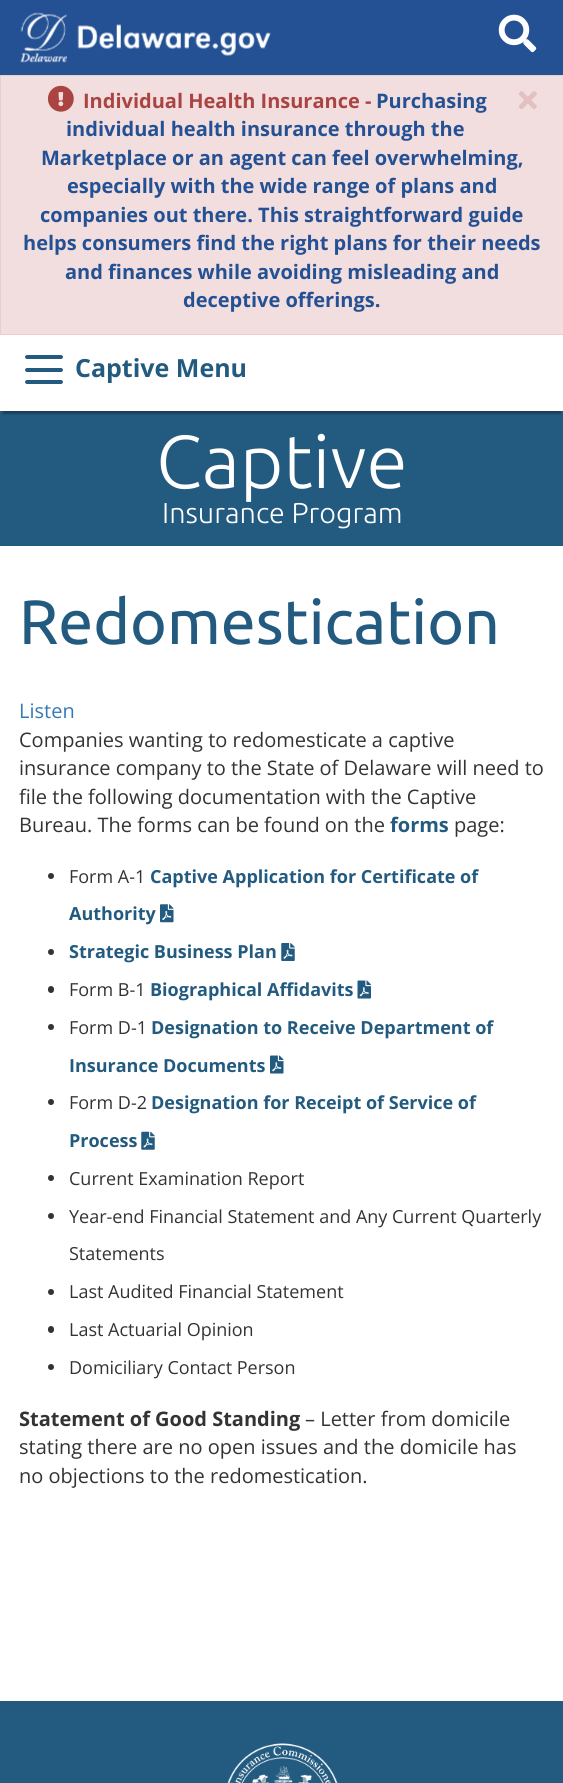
#include <cairo/cairo.h>
#include <math.h>
#include <stddef.h>

typedef struct { double x, y; const char *s; } line_t;
static cairo_t *cr;

static void rgb(unsigned color)
{
	cairo_set_source_rgb(cr, (color >> 16) / 255.0, (color >> 8 & 255) / 255.0, (color & 255) / 255.0);
}

static void rrect(double x, double y, double w, double h, double r)
{
	cairo_new_sub_path(cr);
	cairo_arc(cr, x + w - r, y + h - r, r, 0, M_PI / 2);
	cairo_arc(cr, x + r, y + h - r, r, M_PI / 2, M_PI);
	cairo_arc(cr, x + r, y + r, r, M_PI, 1.5 * M_PI);
	cairo_arc(cr, x + w - r, y + r, r, 1.5 * M_PI, 2 * M_PI);
	cairo_close_path(cr);
}

static void soft_shadow(double x, double y, double w, double h, double r, double blur, double alpha)
{
	cairo_push_group_with_content(cr, CAIRO_CONTENT_ALPHA);
	cairo_set_operator(cr, CAIRO_OPERATOR_SOURCE);
	for (int i = 15; i >= -15 && fmin(w, h) + blur * i / 3 > 0; i -= 2) {
		double e = blur * i / 6;
		cairo_set_source_rgba(cr, 0, 0, 0, alpha * erfc((i - 1) / 8.5) / 2);
		rrect(x - e, y - e, w + 2 * e, h + 2 * e, fmax(0, fmin(r + e + blur * .6, fmin(w, h) / 2 + e)));
		cairo_fill(cr);
	}
	cairo_pattern_t *soft = cairo_pop_group(cr);
	cairo_mask(cr, soft);
	cairo_pattern_destroy(soft);
}

static void image(const char *path, double x, double y, double w, double h)
{
	cairo_surface_t *image = cairo_image_surface_create_from_png(path);
	cairo_save(cr);
	cairo_set_source_surface(cr, image, x, y);
	cairo_rectangle(cr, x, y, w, h);
	cairo_fill(cr);
	cairo_restore(cr);
	cairo_surface_destroy(image);
}

int main(void) {
	cairo_surface_t *surface = cairo_image_surface_create(CAIRO_FORMAT_RGB24, 563, 1783);
	cr = cairo_create(surface);
	cairo_font_options_t *options = cairo_font_options_create();
	cairo_font_options_set_hint_metrics(options, CAIRO_HINT_METRICS_OFF);
	cairo_font_options_set_hint_style(options, CAIRO_HINT_STYLE_NONE);
	cairo_set_font_options(cr, options);
	cairo_set_miter_limit(cr, 4);
	rgb(0xffffff);
	cairo_paint(cr);
	rgb(0x245194);
	cairo_rectangle(cr, 0, 0, 563, 75);
	cairo_fill(cr);
	image("img/1.png", 20, 12, 47, 51);
	image("img/2.png", 77, 24, 194, 32);
	image("img/3.png", 498, 14, 39, 39);
	rgb(0xf2dede);
	cairo_rectangle(cr, 0.5, 75.5, 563, 259);
	cairo_fill_preserve(cr);
	rgb(0xebccd1);
	cairo_set_line_width(cr, 1);
	cairo_stroke(cr);
	image("img/4.png", 518, 91, 19, 19);
	image("img/5.png", 47, 85, 27, 27);
	rgb(0x235b80);
	cairo_rectangle(cr, 0, 411, 563, 135);
	cairo_fill(cr);
	rgb(0x000000);
	soft_shadow(3, 343, 558, 71, 0, 1, 0.3);
	rgb(0xffffff);
	cairo_rectangle(cr, 1, 341, 562, 70);
	cairo_fill(cr);
	rgb(0x235b80);
	cairo_new_path(cr);
	cairo_move_to(cr, 27, 355);
	cairo_line_to(cr, 44, 355);
	cairo_line_to(cr, 44, 359);
	cairo_line_to(cr, 27, 359);
	cairo_curve_to(cr, 26, 359, 25, 358, 25, 357);
	cairo_curve_to(cr, 25, 356, 26, 355, 27, 355);
	cairo_close_path(cr);
	cairo_fill(cr);
	cairo_new_path(cr);
	cairo_move_to(cr, 44, 355);
	cairo_line_to(cr, 61, 355);
	cairo_curve_to(cr, 62, 355, 63, 356, 63, 357);
	cairo_curve_to(cr, 63, 358, 62, 359, 61, 359);
	cairo_line_to(cr, 44, 359);
	cairo_close_path(cr);
	cairo_fill(cr);
	cairo_new_path(cr);
	cairo_move_to(cr, 27, 368);
	cairo_line_to(cr, 44, 368);
	cairo_line_to(cr, 44, 372);
	cairo_line_to(cr, 27, 372);
	cairo_curve_to(cr, 26, 372, 25, 371, 25, 370);
	cairo_curve_to(cr, 25, 369, 26, 368, 27, 368);
	cairo_close_path(cr);
	cairo_fill(cr);
	cairo_new_path(cr);
	cairo_move_to(cr, 44, 368);
	cairo_line_to(cr, 61, 368);
	cairo_curve_to(cr, 62, 368, 63, 369, 63, 370);
	cairo_curve_to(cr, 63, 371, 62, 372, 61, 372);
	cairo_line_to(cr, 44, 372);
	cairo_close_path(cr);
	cairo_fill(cr);
	cairo_new_path(cr);
	cairo_move_to(cr, 27, 380);
	cairo_line_to(cr, 44, 380);
	cairo_line_to(cr, 44, 384);
	cairo_line_to(cr, 27, 384);
	cairo_curve_to(cr, 26, 384, 25, 383, 25, 382);
	cairo_curve_to(cr, 25, 381, 26, 380, 27, 380);
	cairo_close_path(cr);
	cairo_fill(cr);
	cairo_new_path(cr);
	cairo_move_to(cr, 44, 380);
	cairo_line_to(cr, 61, 380);
	cairo_curve_to(cr, 62, 380, 63, 381, 63, 382);
	cairo_curve_to(cr, 63, 383, 62, 384, 61, 384);
	cairo_line_to(cr, 44, 384);
	cairo_close_path(cr);
	cairo_fill(cr);
	image("img/6.png", 160, 904, 14, 19);
	rgb(0x333333);
	cairo_arc(cr, 51, 876, 3, 0, 2 * M_PI);
	cairo_fill(cr);
	cairo_arc(cr, 51, 952, 3, 0, 2 * M_PI);
	cairo_fill(cr);
	image("img/7.png", 281, 943, 14, 18);
	rrect(48, 986, 6, 7, 3);
	cairo_fill(cr);
	image("img/8.png", 357, 980, 14, 19);
	image("img/9.png", 270, 1055, 14, 19);
	cairo_arc(cr, 51, 1027, 3, 0, 2 * M_PI);
	cairo_fill(cr);
	cairo_arc(cr, 51, 1102, 3, 0, 2 * M_PI);
	cairo_fill(cr);
	image("img/10.png", 141, 1131, 14, 19);
	cairo_arc(cr, 51, 1178, 3, 0, 2 * M_PI);
	cairo_fill(cr);
	cairo_arc(cr, 51, 1216, 3, 0, 2 * M_PI);
	cairo_fill(cr);
	cairo_arc(cr, 51, 1292, 3, 0, 2 * M_PI);
	cairo_fill(cr);
	rrect(48, 1326, 6, 7, 3);
	cairo_fill(cr);
	cairo_arc(cr, 51, 1367, 3, 0, 2 * M_PI);
	cairo_fill(cr);
	rgb(0x235b80);
	cairo_rectangle(cr, 0, 1701, 563, 82);
	cairo_fill(cr);
	image("img/11.png", 227, 1743, 111, 40);
	cairo_select_font_face(cr, "Open Sans", CAIRO_FONT_SLANT_NORMAL, CAIRO_FONT_WEIGHT_BOLD);
	cairo_set_font_size(cr, 20);
	rgb(0xa94442);
	cairo_move_to(cr, 83, 108);
	cairo_show_text(cr, "Individual Health Insurance -");
	rgb(0x245194);
	{
		static const line_t items[] = {
			{376, 108, "Purchasing"},
			{66, 136, "individual health insurance through the"},
			{41, 165, "Marketplace or an agent can feel overwhelming,"},
			{67, 193, "especially with the wide range of plans and"},
			{40, 222, "companies out there. This straightforward guide"},
			{23, 250, "helps consumers find the right plans for their needs"},
			{65, 279, "and finances while avoiding misleading and"},
			{183, 307, "deceptive offerings."},
		};
		for (size_t i = 0; i < sizeof items / sizeof *items; i++) {
			cairo_move_to(cr, items[i].x, items[i].y);
			cairo_show_text(cr, items[i].s);
		}
	}
	cairo_set_font_size(cr, 25);
	rgb(0x235b80);
	cairo_move_to(cr, 75, 377);
	cairo_show_text(cr, "Captive Menu");
	cairo_select_font_face(cr, "Ubuntu Light", CAIRO_FONT_SLANT_NORMAL, CAIRO_FONT_WEIGHT_NORMAL);
	cairo_set_font_size(cr, 75);
	rgb(0xffffff);
	cairo_move_to(cr, 156, 488);
	cairo_show_text(cr, "Captive");
	cairo_set_font_size(cr, 28.75);
	cairo_move_to(cr, 162, 523);
	cairo_show_text(cr, "Insurance Program");
	cairo_select_font_face(cr, "Ubuntu", CAIRO_FONT_SLANT_NORMAL, CAIRO_FONT_WEIGHT_NORMAL);
	cairo_set_font_size(cr, 62.5);
	rgb(0x235b80);
	cairo_move_to(cr, 19, 644);
	cairo_show_text(cr, "Redomestication");
	cairo_select_font_face(cr, "Open Sans", CAIRO_FONT_SLANT_NORMAL, CAIRO_FONT_WEIGHT_NORMAL);
	cairo_set_font_size(cr, 20);
	rgb(0x337ab7);
	cairo_move_to(cr, 19, 718);
	cairo_show_text(cr, "Listen");
	rgb(0x333333);
	{
		static const line_t items[] = {
			{19, 747, "Companies wanting to redomesticate a captive"},
			{19, 775, "insurance company to the State of Delaware will need to"},
			{19, 804, "file the following documentation with the Captive"},
			{19, 832, "Bureau. The forms can be found on the"},
		};
		for (size_t i = 0; i < sizeof items / sizeof *items; i++) {
			cairo_move_to(cr, items[i].x, items[i].y);
			cairo_show_text(cr, items[i].s);
		}
	}
	cairo_select_font_face(cr, "Open Sans", CAIRO_FONT_SLANT_NORMAL, CAIRO_FONT_WEIGHT_BOLD);
	rgb(0x235b80);
	cairo_move_to(cr, 390, 832);
	cairo_show_text(cr, "forms");
	cairo_select_font_face(cr, "Open Sans", CAIRO_FONT_SLANT_NORMAL, CAIRO_FONT_WEIGHT_NORMAL);
	rgb(0x333333);
	cairo_move_to(cr, 454, 832);
	cairo_show_text(cr, "page:");
	cairo_select_font_face(cr, "Open Sans", CAIRO_FONT_SLANT_NORMAL, CAIRO_FONT_WEIGHT_BOLD);
	cairo_set_font_size(cr, 18);
	rgb(0x235b80);
	cairo_move_to(cr, 150, 883);
	cairo_show_text(cr, "Captive Application for Certificate of");
	cairo_move_to(cr, 69, 920);
	cairo_show_text(cr, "Authority");
	cairo_select_font_face(cr, "Open Sans", CAIRO_FONT_SLANT_NORMAL, CAIRO_FONT_WEIGHT_NORMAL);
	rgb(0x333333);
	cairo_move_to(cr, 69, 883);
	cairo_show_text(cr, "Form A-1");
	cairo_select_font_face(cr, "Open Sans", CAIRO_FONT_SLANT_NORMAL, CAIRO_FONT_WEIGHT_BOLD);
	rgb(0x235b80);
	cairo_move_to(cr, 69, 958);
	cairo_show_text(cr, "Strategic Business Plan");
	cairo_select_font_face(cr, "Open Sans", CAIRO_FONT_SLANT_NORMAL, CAIRO_FONT_WEIGHT_NORMAL);
	rgb(0x333333);
	cairo_move_to(cr, 69, 996);
	cairo_show_text(cr, "Form B-1");
	cairo_select_font_face(cr, "Open Sans", CAIRO_FONT_SLANT_NORMAL, CAIRO_FONT_WEIGHT_BOLD);
	rgb(0x235b80);
	{
		static const line_t items[] = {
			{150, 996, "Biographical Affidavits"},
			{151, 1034, "Designation to Receive Department of"},
			{69, 1072, "Insurance Documents"},
		};
		for (size_t i = 0; i < sizeof items / sizeof *items; i++) {
			cairo_move_to(cr, items[i].x, items[i].y);
			cairo_show_text(cr, items[i].s);
		}
	}
	cairo_select_font_face(cr, "Open Sans", CAIRO_FONT_SLANT_NORMAL, CAIRO_FONT_WEIGHT_NORMAL);
	rgb(0x333333);
	cairo_move_to(cr, 69, 1034);
	cairo_show_text(cr, "Form D-1");
	cairo_move_to(cr, 69, 1109);
	cairo_show_text(cr, "Form D-2");
	cairo_select_font_face(cr, "Open Sans", CAIRO_FONT_SLANT_NORMAL, CAIRO_FONT_WEIGHT_BOLD);
	rgb(0x235b80);
	cairo_move_to(cr, 151, 1109);
	cairo_show_text(cr, "Designation for Receipt of Service of");
	cairo_move_to(cr, 69, 1147);
	cairo_show_text(cr, "Process");
	cairo_select_font_face(cr, "Open Sans", CAIRO_FONT_SLANT_NORMAL, CAIRO_FONT_WEIGHT_NORMAL);
	rgb(0x333333);
	{
		static const line_t items[] = {
			{69, 1185, "Current Examination Report"},
			{69, 1223, "Year-end Financial Statement and Any Current Quarterly"},
			{69, 1260, "Statements"},
			{69, 1298, "Last Audited Financial Statement"},
			{69, 1336, "Last Actuarial Opinion"},
			{69, 1374, "Domiciliary Contact Person"},
		};
		for (size_t i = 0; i < sizeof items / sizeof *items; i++) {
			cairo_move_to(cr, items[i].x, items[i].y);
			cairo_show_text(cr, items[i].s);
		}
	}
	cairo_select_font_face(cr, "Open Sans", CAIRO_FONT_SLANT_NORMAL, CAIRO_FONT_WEIGHT_BOLD);
	cairo_set_font_size(cr, 20);
	cairo_move_to(cr, 19, 1426);
	cairo_show_text(cr, "Statement of Good Standing");
	cairo_select_font_face(cr, "Open Sans", CAIRO_FONT_SLANT_NORMAL, CAIRO_FONT_WEIGHT_NORMAL);
	{
		static const line_t items[] = {
			{305, 1426, "– Letter from domicile"},
			{19, 1454, "stating there are no open issues and the domicile has"},
			{19, 1483, "no objections to the redomestication."},
		};
		for (size_t i = 0; i < sizeof items / sizeof *items; i++) {
			cairo_move_to(cr, items[i].x, items[i].y);
			cairo_show_text(cr, items[i].s);
		}
	}
	cairo_surface_write_to_png(surface, "page.png");
	cairo_font_options_destroy(options);
	cairo_destroy(cr);
	cairo_surface_destroy(surface);
	return 0;
}
